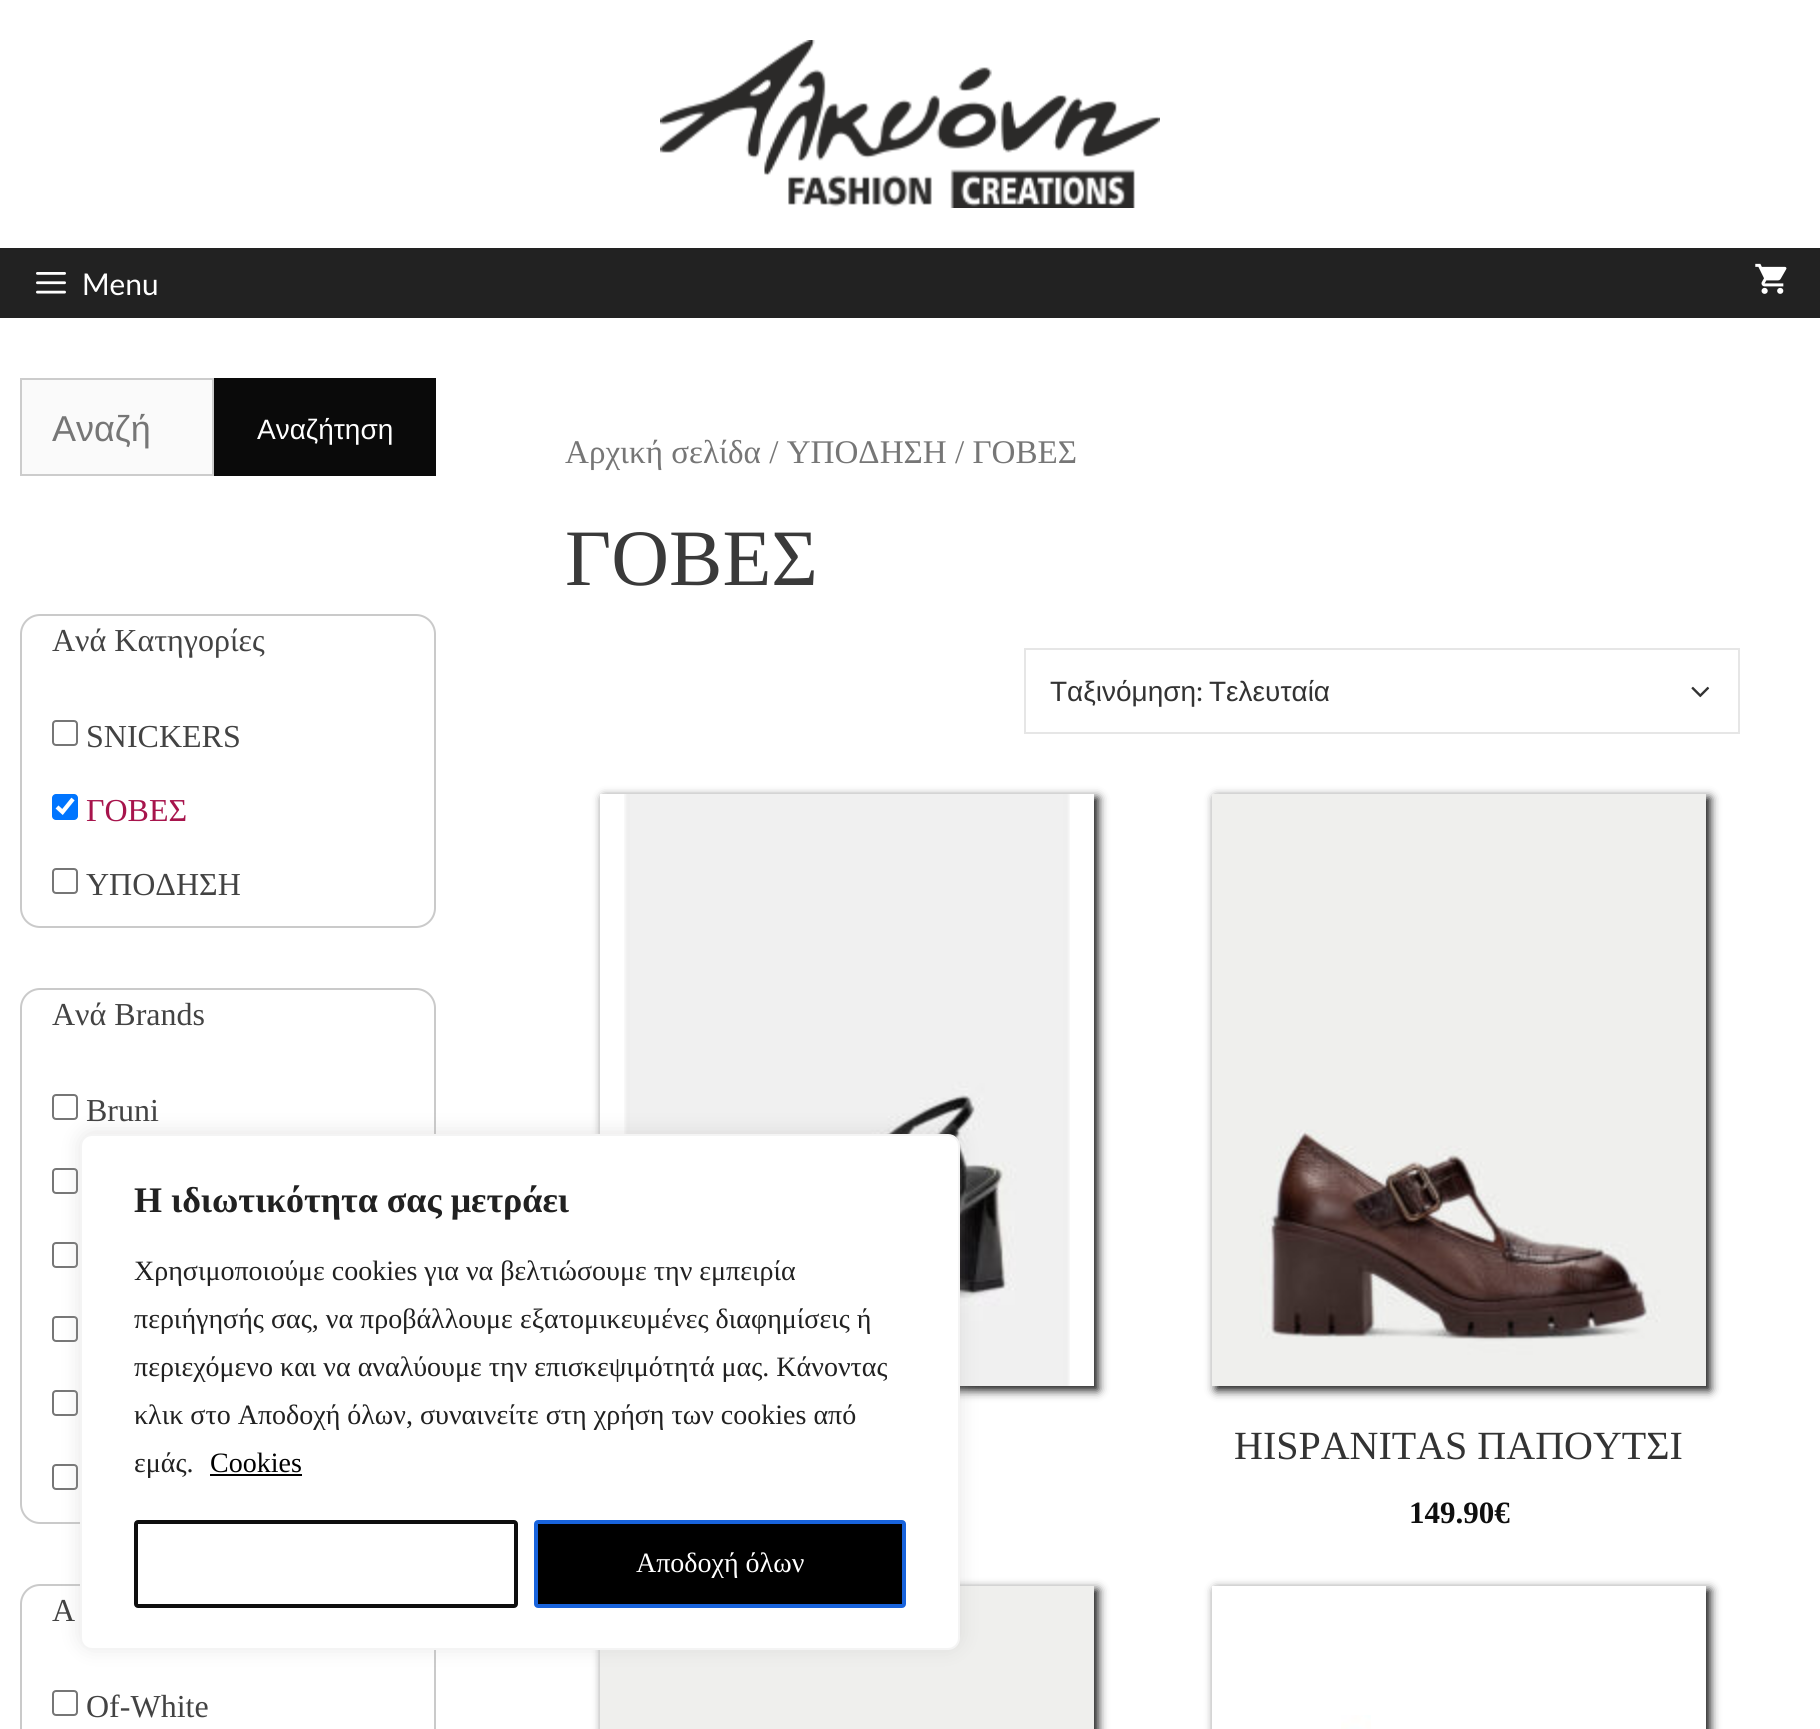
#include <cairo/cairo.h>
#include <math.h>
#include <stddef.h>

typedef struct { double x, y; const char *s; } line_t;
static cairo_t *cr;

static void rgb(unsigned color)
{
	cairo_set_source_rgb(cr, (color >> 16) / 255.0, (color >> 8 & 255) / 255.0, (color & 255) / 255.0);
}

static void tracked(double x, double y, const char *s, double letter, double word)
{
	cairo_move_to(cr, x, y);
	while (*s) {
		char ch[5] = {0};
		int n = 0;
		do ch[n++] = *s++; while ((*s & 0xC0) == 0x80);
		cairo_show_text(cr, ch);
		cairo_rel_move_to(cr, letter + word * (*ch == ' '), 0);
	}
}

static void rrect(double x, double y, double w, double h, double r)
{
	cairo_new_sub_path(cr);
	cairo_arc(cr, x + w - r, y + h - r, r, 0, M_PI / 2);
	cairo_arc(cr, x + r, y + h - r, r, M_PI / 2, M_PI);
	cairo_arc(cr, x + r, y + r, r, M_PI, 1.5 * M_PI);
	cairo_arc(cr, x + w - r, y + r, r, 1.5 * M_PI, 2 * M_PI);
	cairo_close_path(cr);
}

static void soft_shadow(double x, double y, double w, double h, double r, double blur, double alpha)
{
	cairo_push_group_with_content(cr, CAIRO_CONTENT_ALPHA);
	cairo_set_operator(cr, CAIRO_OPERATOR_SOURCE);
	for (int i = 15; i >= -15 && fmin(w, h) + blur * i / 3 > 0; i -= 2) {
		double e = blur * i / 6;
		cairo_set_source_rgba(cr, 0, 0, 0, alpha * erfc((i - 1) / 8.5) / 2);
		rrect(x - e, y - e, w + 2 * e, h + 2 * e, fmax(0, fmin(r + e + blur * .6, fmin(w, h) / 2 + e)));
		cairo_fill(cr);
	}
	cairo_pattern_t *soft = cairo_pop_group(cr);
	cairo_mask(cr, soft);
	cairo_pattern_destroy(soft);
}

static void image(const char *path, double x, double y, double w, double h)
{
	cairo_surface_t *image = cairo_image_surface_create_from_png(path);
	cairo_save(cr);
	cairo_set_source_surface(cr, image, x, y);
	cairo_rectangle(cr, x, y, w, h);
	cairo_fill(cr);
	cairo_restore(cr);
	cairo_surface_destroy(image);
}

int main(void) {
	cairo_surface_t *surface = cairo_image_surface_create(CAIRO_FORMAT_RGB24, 1820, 1729);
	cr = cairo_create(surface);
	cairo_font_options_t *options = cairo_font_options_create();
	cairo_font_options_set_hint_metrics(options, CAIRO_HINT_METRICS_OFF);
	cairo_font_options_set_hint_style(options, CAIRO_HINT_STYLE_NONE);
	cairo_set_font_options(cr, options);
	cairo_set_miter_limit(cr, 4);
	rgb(0xffffff);
	cairo_paint(cr);
	image("img/1.png", 660, 40, 500, 168);
	rgb(0x222222);
	cairo_rectangle(cr, 0, 248, 1820, 70);
	cairo_fill(cr);
	image("img/2.png", 36, 272, 30, 22);
	image("img/3.png", 1755, 263, 32, 31);
	rgb(0xfafafa);
	cairo_rectangle(cr, 21, 379, 192, 96);
	cairo_fill_preserve(cr);
	rgb(0xcccccc);
	cairo_stroke(cr);
	rgb(0x0a0a0a);
	cairo_rectangle(cr, 214, 378, 222, 98);
	cairo_fill(cr);
	rrect(21, 615, 414, 312, 19);
	rgb(0xcacaca);
	cairo_stroke(cr);
	rrect(53, 721, 24, 24, 3);
	rgb(0x767676);
	cairo_stroke(cr);
	rgb(0x0075ff);
	rrect(52, 794, 26, 26, 4);
	cairo_fill(cr);
	cairo_new_path(cr);
	cairo_move_to(cr, 57, 807);
	cairo_line_to(cr, 62.5, 812);
	cairo_line_to(cr, 73, 799);
	rgb(0xffffff);
	cairo_set_line_width(cr, 4.2);
	cairo_stroke(cr);
	rrect(53, 869, 24, 24, 3);
	rgb(0x767676);
	cairo_set_line_width(cr, 2);
	cairo_stroke(cr);
	rrect(21, 989, 414, 534, 19);
	rgb(0xcacaca);
	cairo_stroke(cr);
	rrect(53, 1095, 24, 24, 3);
	rgb(0x767676);
	cairo_stroke(cr);
	rrect(53, 1169, 24, 24, 3);
	cairo_stroke(cr);
	rrect(53, 1243, 24, 24, 3);
	cairo_stroke(cr);
	rrect(53, 1317, 24, 24, 3);
	cairo_stroke(cr);
	rrect(53, 1391, 24, 24, 3);
	cairo_stroke(cr);
	rrect(53, 1465, 24, 24, 3);
	cairo_stroke(cr);
	rrect(21, 1585, 414, 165, 19);
	rgb(0xcacaca);
	cairo_stroke(cr);
	rrect(53, 1691, 24, 24, 3);
	rgb(0x767676);
	cairo_stroke(cr);
	cairo_rectangle(cr, 1025, 649, 714, 84);
	rgb(0xe6e6e6);
	cairo_stroke(cr);
	image("img/4.png", 1691, 686, 19, 12);
	cairo_save(cr);
	cairo_set_fill_rule(cr, CAIRO_FILL_RULE_EVEN_ODD);
	cairo_new_path(cr);
	cairo_move_to(cr, 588, 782);
	cairo_line_to(cr, 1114, 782);
	cairo_line_to(cr, 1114, 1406);
	cairo_line_to(cr, 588, 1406);
	cairo_close_path(cr);
	cairo_move_to(cr, 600, 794);
	cairo_line_to(cr, 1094, 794);
	cairo_line_to(cr, 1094, 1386);
	cairo_line_to(cr, 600, 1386);
	cairo_close_path(cr);
	cairo_clip(cr);
	rgb(0x0a0a0a);
	soft_shadow(604, 798, 494, 592, 0, 5, 1);
	cairo_restore(cr);
	image("img/5.png", 624, 794, 446, 592);
	rgb(0x0a0a0a);
	soft_shadow(1216, 798, 494, 592, 0, 5, 1);
	image("img/6.png", 1212, 794, 494, 592);
	soft_shadow(604, 1590, 494, 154, 0, 5, 1);
	rgb(0xefefed);
	cairo_rectangle(cr, 600, 1586, 494, 143);
	cairo_fill(cr);
	cairo_save(cr);
	cairo_set_fill_rule(cr, CAIRO_FILL_RULE_EVEN_ODD);
	cairo_new_path(cr);
	cairo_move_to(cr, 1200, 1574);
	cairo_line_to(cr, 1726, 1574);
	cairo_line_to(cr, 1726, 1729);
	cairo_line_to(cr, 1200, 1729);
	cairo_close_path(cr);
	cairo_move_to(cr, 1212, 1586);
	cairo_line_to(cr, 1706, 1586);
	cairo_line_to(cr, 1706, 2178);
	cairo_line_to(cr, 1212, 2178);
	cairo_close_path(cr);
	cairo_clip(cr);
	rgb(0x0a0a0a);
	soft_shadow(1216, 1590, 494, 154, 0, 5, 1);
	cairo_restore(cr);
	image("img/7.png", 1341, 1715, 30, 14);
	rgb(0xacabab);
	soft_shadow(80, 1132, 880, 516, 12, 10, 0.3);
	rgb(0xffffff);
	rrect(81, 1135, 878, 514, 11);
	cairo_fill_preserve(cr);
	rgb(0xf4f4f4);
	cairo_stroke(cr);
	rgb(0x000000);
	cairo_rectangle(cr, 210, 1474, 92, 2);
	cairo_fill(cr);
	rrect(136, 1522, 380, 84, 2);
	rgb(0x0e0e0e);
	cairo_set_line_width(cr, 4);
	cairo_stroke(cr);
	rgb(0x000000);
	rrect(536, 1522, 368, 84, 2);
	cairo_fill_preserve(cr);
	rgb(0x1863dc);
	cairo_stroke(cr);
	cairo_select_font_face(cr, "Lato", CAIRO_FONT_SLANT_NORMAL, CAIRO_FONT_WEIGHT_NORMAL);
	cairo_set_font_size(cr, 30);
	rgb(0xffffff);
	cairo_move_to(cr, 82, 295);
	cairo_show_text(cr, "Menu");
	cairo_select_font_face(cr, "Liberation Sans", CAIRO_FONT_SLANT_NORMAL, CAIRO_FONT_WEIGHT_NORMAL);
	cairo_set_font_size(cr, 36);
	rgb(0x767676);
	tracked(52, 441, "Αναζή", 0, -3);
	cairo_set_font_size(cr, 28);
	rgb(0xffffff);
	cairo_move_to(cr, 257, 439);
	cairo_show_text(cr, "Αναζήτηση");
	cairo_select_font_face(cr, "Liberation Serif", CAIRO_FONT_SLANT_NORMAL, CAIRO_FONT_WEIGHT_NORMAL);
	cairo_set_font_size(cr, 32);
	rgb(0x434343);
	cairo_move_to(cr, 52, 651);
	cairo_show_text(cr, "Ανά Κατηγορίες");
	cairo_move_to(cr, 86, 747);
	cairo_show_text(cr, "SNICKERS");
	rgb(0xa7144c);
	cairo_move_to(cr, 86, 821);
	cairo_show_text(cr, "ΓΟΒΕΣ");
	rgb(0x434343);
	{
		static const line_t items[] = {
			{86, 895, "ΥΠΟΔΗΣΗ"},
			{52, 1025, "Ανά Brands"},
			{86, 1121, "Bruni"},
			{52, 1621, "Α"},
			{86, 1717, "Of-White"},
		};
		for (size_t i = 0; i < sizeof items / sizeof *items; i++) {
			cairo_move_to(cr, items[i].x, items[i].y);
			cairo_show_text(cr, items[i].s);
		}
	}
	cairo_set_font_size(cr, 33.1);
	rgb(0x767676);
	cairo_move_to(cr, 565, 463);
	cairo_show_text(cr, "Αρχική σελίδα / ΥΠΟΔΗΣΗ / ΓΟΒΕΣ");
	cairo_set_font_size(cr, 80);
	rgb(0x3a3a3a);
	cairo_move_to(cr, 565, 585);
	cairo_show_text(cr, "ΓΟΒΕΣ");
	cairo_select_font_face(cr, "Liberation Sans", CAIRO_FONT_SLANT_NORMAL, CAIRO_FONT_WEIGHT_NORMAL);
	cairo_set_font_size(cr, 28);
	rgb(0x333333);
	cairo_move_to(cr, 1050, 701);
	cairo_show_text(cr, "Ταξινόμηση");
	cairo_select_font_face(cr, "Lato", CAIRO_FONT_SLANT_NORMAL, CAIRO_FONT_WEIGHT_NORMAL);
	cairo_move_to(cr, 1196, 701);
	cairo_show_text(cr, ":");
	cairo_select_font_face(cr, "Liberation Sans", CAIRO_FONT_SLANT_NORMAL, CAIRO_FONT_WEIGHT_NORMAL);
	cairo_move_to(cr, 1209, 701);
	cairo_show_text(cr, "Τελευταία");
	cairo_select_font_face(cr, "Liberation Serif", CAIRO_FONT_SLANT_NORMAL, CAIRO_FONT_WEIGHT_NORMAL);
	cairo_set_font_size(cr, 40);
	cairo_move_to(cr, 1234, 1459);
	cairo_show_text(cr, "HISPANITAS ΠΑΠΟΥΤΣΙ");
	cairo_select_font_face(cr, "Liberation Serif", CAIRO_FONT_SLANT_NORMAL, CAIRO_FONT_WEIGHT_BOLD);
	cairo_set_font_size(cr, 31);
	rgb(0x0f0f0f);
	cairo_move_to(cr, 1409, 1523);
	cairo_show_text(cr, "149.90€");
	cairo_set_font_size(cr, 36);
	rgb(0x212121);
	cairo_move_to(cr, 134, 1212);
	cairo_show_text(cr, "Η ιδιωτικότητα σας μετράει");
	cairo_select_font_face(cr, "Liberation Serif", CAIRO_FONT_SLANT_NORMAL, CAIRO_FONT_WEIGHT_NORMAL);
	cairo_set_font_size(cr, 28);
	{
		static const line_t items[] = {
			{134, 1280, "Χρησιμοποιούμε cookies για να βελτιώσουμε την εμπειρία"},
			{134, 1328, "περιήγησής σας, να προβάλλουμε εξατομικευμένες διαφημίσεις ή"},
			{134, 1376, "περιεχόμενο και να αναλύουμε την επισκεψιμότητά μας. Κάνοντας"},
			{134, 1424, "κλικ στο Αποδοχή όλων, συναινείτε στη χρήση των cookies από"},
			{134, 1472, "εμάς."},
		};
		for (size_t i = 0; i < sizeof items / sizeof *items; i++) {
			cairo_move_to(cr, items[i].x, items[i].y);
			cairo_show_text(cr, items[i].s);
		}
	}
	rgb(0x000000);
	cairo_move_to(cr, 210, 1472);
	cairo_show_text(cr, "Cookies");
	rgb(0xffffff);
	cairo_move_to(cr, 636, 1572);
	cairo_show_text(cr, "Αποδοχή όλων");
	cairo_surface_write_to_png(surface, "page.png");
	cairo_font_options_destroy(options);
	cairo_destroy(cr);
	cairo_surface_destroy(surface);
	return 0;
}
